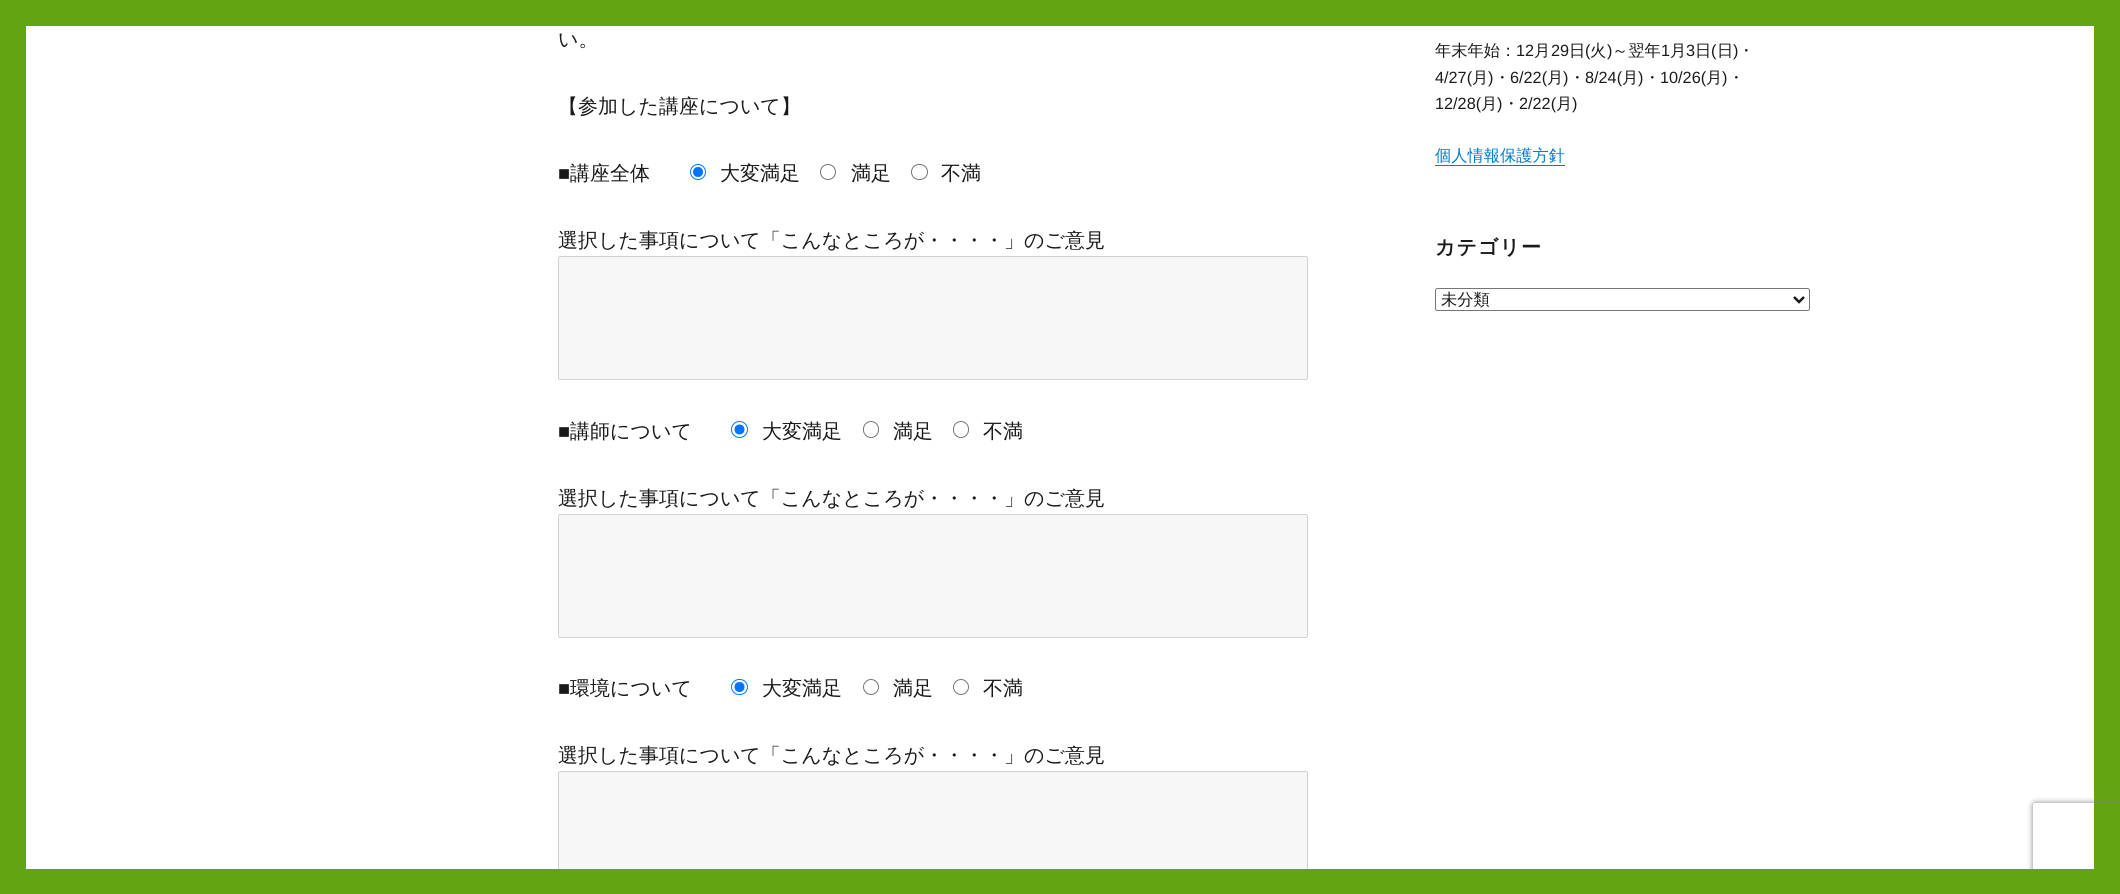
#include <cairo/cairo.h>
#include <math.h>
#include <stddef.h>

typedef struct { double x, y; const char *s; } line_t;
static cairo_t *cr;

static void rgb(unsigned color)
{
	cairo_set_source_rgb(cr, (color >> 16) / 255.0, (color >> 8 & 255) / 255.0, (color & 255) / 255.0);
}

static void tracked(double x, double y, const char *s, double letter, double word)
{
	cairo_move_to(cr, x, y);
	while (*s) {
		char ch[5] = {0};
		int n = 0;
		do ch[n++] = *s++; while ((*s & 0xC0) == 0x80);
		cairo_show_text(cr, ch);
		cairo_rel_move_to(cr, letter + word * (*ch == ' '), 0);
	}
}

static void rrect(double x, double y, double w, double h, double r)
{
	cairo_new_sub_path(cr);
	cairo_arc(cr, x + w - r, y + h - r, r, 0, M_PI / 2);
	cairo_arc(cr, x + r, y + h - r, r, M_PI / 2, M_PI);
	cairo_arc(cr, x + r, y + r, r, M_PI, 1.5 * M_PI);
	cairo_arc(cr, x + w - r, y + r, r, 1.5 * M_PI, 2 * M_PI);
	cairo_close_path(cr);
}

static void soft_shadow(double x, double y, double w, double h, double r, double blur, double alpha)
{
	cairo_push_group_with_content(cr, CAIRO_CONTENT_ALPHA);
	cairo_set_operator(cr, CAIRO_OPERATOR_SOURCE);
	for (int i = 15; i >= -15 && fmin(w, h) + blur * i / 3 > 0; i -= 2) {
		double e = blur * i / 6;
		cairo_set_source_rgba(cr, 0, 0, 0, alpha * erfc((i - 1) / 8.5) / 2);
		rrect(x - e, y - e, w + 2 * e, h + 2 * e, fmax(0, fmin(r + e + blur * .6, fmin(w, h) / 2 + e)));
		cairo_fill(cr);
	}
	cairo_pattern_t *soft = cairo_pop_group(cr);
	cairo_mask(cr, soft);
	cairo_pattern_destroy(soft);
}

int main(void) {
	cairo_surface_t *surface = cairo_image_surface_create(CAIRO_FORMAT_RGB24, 2120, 894);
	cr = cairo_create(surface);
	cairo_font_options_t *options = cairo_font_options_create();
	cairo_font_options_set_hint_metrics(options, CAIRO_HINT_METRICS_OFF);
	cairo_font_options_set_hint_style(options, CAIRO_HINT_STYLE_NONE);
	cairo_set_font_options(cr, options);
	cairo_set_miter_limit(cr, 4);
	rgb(0x62a510);
	cairo_paint(cr);
	rgb(0xffffff);
	cairo_rectangle(cr, 26, 26, 2068, 843);
	cairo_fill(cr);
	cairo_arc(cr, 698, 172, 7.5, 0, 2 * M_PI);
	rgb(0x0075ff);
	cairo_set_line_width(cr, 1);
	cairo_stroke(cr);
	cairo_arc(cr, 698, 172, 5, 0, 2 * M_PI);
	cairo_fill(cr);
	cairo_arc(cr, 828, 172, 7.5, 0, 2 * M_PI);
	rgb(0x767676);
	cairo_stroke(cr);
	rrect(911.5, 164.5, 16, 15, 7.5);
	cairo_stroke(cr);
	rgb(0xf7f7f7);
	rrect(558.5, 256.5, 749, 123, 2);
	cairo_fill_preserve(cr);
	rgb(0xd1d1d1);
	cairo_stroke(cr);
	cairo_arc(cr, 739.5, 429.5, 8, 0, 2 * M_PI);
	rgb(0x0075ff);
	cairo_stroke(cr);
	cairo_arc(cr, 739.5, 429.5, 5, 0, 2 * M_PI);
	cairo_fill(cr);
	rrect(863.5, 421.5, 15, 16, 7.5);
	rgb(0x767676);
	cairo_stroke(cr);
	rrect(953.5, 421.5, 15, 16, 7.5);
	cairo_stroke(cr);
	rgb(0xf7f7f7);
	rrect(558.5, 514.5, 749, 123, 2);
	cairo_fill_preserve(cr);
	rgb(0xd1d1d1);
	cairo_stroke(cr);
	rrect(731.5, 679.5, 16, 15, 7.5);
	rgb(0x0075ff);
	cairo_stroke(cr);
	cairo_arc(cr, 739.5, 687, 5, 0, 2 * M_PI);
	cairo_fill(cr);
	cairo_arc(cr, 871, 687, 7.5, 0, 2 * M_PI);
	rgb(0x767676);
	cairo_stroke(cr);
	cairo_arc(cr, 961, 687, 7.5, 0, 2 * M_PI);
	cairo_stroke(cr);
	rgb(0xf7f7f7);
	rrect(558.5, 771.5, 749, 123, 2);
	cairo_fill_preserve(cr);
	rgb(0xd1d1d1);
	cairo_stroke(cr);
	rgb(0x007acc);
	cairo_rectangle(cr, 1435, 165, 130, 1);
	cairo_fill(cr);
	rrect(1435.5, 288.5, 374, 22, 2);
	rgb(0x767676);
	cairo_stroke(cr);
	cairo_new_path(cr);
	cairo_move_to(cr, 1794, 297);
	cairo_line_to(cr, 1799, 302);
	cairo_line_to(cr, 1804, 297);
	rgb(0x1a1a1a);
	cairo_set_line_width(cr, 2.5);
	cairo_stroke(cr);
	cairo_save(cr);
	cairo_set_fill_rule(cr, CAIRO_FILL_RULE_EVEN_ODD);
	cairo_new_path(cr);
	cairo_move_to(cr, 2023, 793);
	cairo_line_to(cr, 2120, 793);
	cairo_line_to(cr, 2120, 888);
	cairo_line_to(cr, 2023, 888);
	cairo_close_path(cr);
	cairo_move_to(cr, 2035.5, 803);
	cairo_line_to(cr, 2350.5, 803);
	cairo_curve_to(cr, 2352, 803, 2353, 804, 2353, 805.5);
	cairo_line_to(cr, 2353, 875.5);
	cairo_curve_to(cr, 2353, 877, 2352, 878, 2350.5, 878);
	cairo_line_to(cr, 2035.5, 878);
	cairo_curve_to(cr, 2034, 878, 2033, 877, 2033, 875.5);
	cairo_line_to(cr, 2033, 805.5);
	cairo_curve_to(cr, 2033, 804, 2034, 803, 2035.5, 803);
	cairo_close_path(cr);
	cairo_clip(cr);
	rgb(0x808080);
	soft_shadow(2033, 803, 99, 75, 2.5, 3, 1);
	cairo_restore(cr);
	rgb(0x62a510);
	cairo_rectangle(cr, 558, 869, 1562, 25);
	cairo_fill(cr);
	cairo_select_font_face(cr, "WenQuanYi Zen Hei Medium", CAIRO_FONT_SLANT_NORMAL, CAIRO_FONT_WEIGHT_NORMAL);
	cairo_set_font_size(cr, 20);
	rgb(0x1a1a1a);
	cairo_move_to(cr, 558, 46);
	cairo_show_text(cr, "い。");
	cairo_move_to(cr, 558, 113);
	cairo_show_text(cr, "【参加した講座について】");
	cairo_select_font_face(cr, "Liberation Sans", CAIRO_FONT_SLANT_NORMAL, CAIRO_FONT_WEIGHT_NORMAL);
	cairo_move_to(cr, 558, 180);
	cairo_show_text(cr, "■");
	cairo_select_font_face(cr, "WenQuanYi Zen Hei Medium", CAIRO_FONT_SLANT_NORMAL, CAIRO_FONT_WEIGHT_NORMAL);
	{
		static const line_t items[] = {
			{570, 180, "講座全体"},
			{720, 180, "大変満足"},
			{851, 180, "満足"},
			{941, 180, "不満"},
			{558, 247, "選択した事項について「こんなところが・・・・」のご意見"},
		};
		for (size_t i = 0; i < sizeof items / sizeof *items; i++) {
			cairo_move_to(cr, items[i].x, items[i].y);
			cairo_show_text(cr, items[i].s);
		}
	}
	cairo_select_font_face(cr, "Liberation Sans", CAIRO_FONT_SLANT_NORMAL, CAIRO_FONT_WEIGHT_NORMAL);
	cairo_move_to(cr, 558, 438);
	cairo_show_text(cr, "■");
	cairo_select_font_face(cr, "WenQuanYi Zen Hei Medium", CAIRO_FONT_SLANT_NORMAL, CAIRO_FONT_WEIGHT_NORMAL);
	{
		static const line_t items[] = {
			{570, 438, "講師について"},
			{762, 438, "大変満足"},
			{893, 438, "満足"},
			{983, 438, "不満"},
			{558, 505, "選択した事項について「こんなところが・・・・」のご意見"},
		};
		for (size_t i = 0; i < sizeof items / sizeof *items; i++) {
			cairo_move_to(cr, items[i].x, items[i].y);
			cairo_show_text(cr, items[i].s);
		}
	}
	cairo_select_font_face(cr, "Liberation Sans", CAIRO_FONT_SLANT_NORMAL, CAIRO_FONT_WEIGHT_NORMAL);
	cairo_move_to(cr, 558, 695);
	cairo_show_text(cr, "■");
	cairo_select_font_face(cr, "WenQuanYi Zen Hei Medium", CAIRO_FONT_SLANT_NORMAL, CAIRO_FONT_WEIGHT_NORMAL);
	{
		static const line_t items[] = {
			{570, 695, "環境について"},
			{762, 695, "大変満足"},
			{893, 695, "満足"},
			{983, 695, "不満"},
			{558, 762, "選択した事項について「こんなところが・・・・」のご意見"},
		};
		for (size_t i = 0; i < sizeof items / sizeof *items; i++) {
			cairo_move_to(cr, items[i].x, items[i].y);
			cairo_show_text(cr, items[i].s);
		}
	}
	cairo_set_font_size(cr, 16.25);
	cairo_move_to(cr, 1435, 56);
	cairo_show_text(cr, "年末年始：");
	cairo_select_font_face(cr, "Liberation Sans", CAIRO_FONT_SLANT_NORMAL, CAIRO_FONT_WEIGHT_NORMAL);
	cairo_move_to(cr, 1516, 56);
	cairo_show_text(cr, "12");
	cairo_select_font_face(cr, "WenQuanYi Zen Hei Medium", CAIRO_FONT_SLANT_NORMAL, CAIRO_FONT_WEIGHT_NORMAL);
	cairo_move_to(cr, 1534, 56);
	cairo_show_text(cr, "月");
	cairo_select_font_face(cr, "Liberation Sans", CAIRO_FONT_SLANT_NORMAL, CAIRO_FONT_WEIGHT_NORMAL);
	cairo_move_to(cr, 1551, 56);
	cairo_show_text(cr, "29");
	cairo_select_font_face(cr, "WenQuanYi Zen Hei Medium", CAIRO_FONT_SLANT_NORMAL, CAIRO_FONT_WEIGHT_NORMAL);
	cairo_move_to(cr, 1569, 56);
	cairo_show_text(cr, "日");
	cairo_select_font_face(cr, "Liberation Sans", CAIRO_FONT_SLANT_NORMAL, CAIRO_FONT_WEIGHT_NORMAL);
	cairo_move_to(cr, 1585, 56);
	cairo_show_text(cr, "(");
	cairo_select_font_face(cr, "WenQuanYi Zen Hei Medium", CAIRO_FONT_SLANT_NORMAL, CAIRO_FONT_WEIGHT_NORMAL);
	cairo_move_to(cr, 1590, 56);
	cairo_show_text(cr, "火");
	cairo_select_font_face(cr, "Liberation Sans", CAIRO_FONT_SLANT_NORMAL, CAIRO_FONT_WEIGHT_NORMAL);
	cairo_move_to(cr, 1607, 56);
	cairo_show_text(cr, ")");
	cairo_select_font_face(cr, "WenQuanYi Zen Hei Medium", CAIRO_FONT_SLANT_NORMAL, CAIRO_FONT_WEIGHT_NORMAL);
	cairo_move_to(cr, 1612, 56);
	cairo_show_text(cr, "～翌年");
	cairo_select_font_face(cr, "Liberation Sans", CAIRO_FONT_SLANT_NORMAL, CAIRO_FONT_WEIGHT_NORMAL);
	cairo_move_to(cr, 1661, 56);
	cairo_show_text(cr, "1");
	cairo_select_font_face(cr, "WenQuanYi Zen Hei Medium", CAIRO_FONT_SLANT_NORMAL, CAIRO_FONT_WEIGHT_NORMAL);
	cairo_move_to(cr, 1670, 56);
	cairo_show_text(cr, "月");
	cairo_select_font_face(cr, "Liberation Sans", CAIRO_FONT_SLANT_NORMAL, CAIRO_FONT_WEIGHT_NORMAL);
	cairo_move_to(cr, 1686, 56);
	cairo_show_text(cr, "3");
	cairo_select_font_face(cr, "WenQuanYi Zen Hei Medium", CAIRO_FONT_SLANT_NORMAL, CAIRO_FONT_WEIGHT_NORMAL);
	cairo_move_to(cr, 1695, 56);
	cairo_show_text(cr, "日");
	cairo_select_font_face(cr, "Liberation Sans", CAIRO_FONT_SLANT_NORMAL, CAIRO_FONT_WEIGHT_NORMAL);
	cairo_move_to(cr, 1711, 56);
	cairo_show_text(cr, "(");
	cairo_select_font_face(cr, "WenQuanYi Zen Hei Medium", CAIRO_FONT_SLANT_NORMAL, CAIRO_FONT_WEIGHT_NORMAL);
	cairo_move_to(cr, 1717, 56);
	cairo_show_text(cr, "日");
	cairo_select_font_face(cr, "Liberation Sans", CAIRO_FONT_SLANT_NORMAL, CAIRO_FONT_WEIGHT_NORMAL);
	cairo_move_to(cr, 1733, 56);
	cairo_show_text(cr, ")");
	cairo_select_font_face(cr, "WenQuanYi Zen Hei Medium", CAIRO_FONT_SLANT_NORMAL, CAIRO_FONT_WEIGHT_NORMAL);
	cairo_move_to(cr, 1738, 56);
	cairo_show_text(cr, "・");
	cairo_select_font_face(cr, "Liberation Sans", CAIRO_FONT_SLANT_NORMAL, CAIRO_FONT_WEIGHT_NORMAL);
	cairo_move_to(cr, 1435, 83);
	cairo_show_text(cr, "4/27(");
	cairo_select_font_face(cr, "WenQuanYi Zen Hei Medium", CAIRO_FONT_SLANT_NORMAL, CAIRO_FONT_WEIGHT_NORMAL);
	cairo_move_to(cr, 1472, 83);
	cairo_show_text(cr, "月");
	cairo_select_font_face(cr, "Liberation Sans", CAIRO_FONT_SLANT_NORMAL, CAIRO_FONT_WEIGHT_NORMAL);
	cairo_move_to(cr, 1488, 83);
	cairo_show_text(cr, ")");
	cairo_select_font_face(cr, "WenQuanYi Zen Hei Medium", CAIRO_FONT_SLANT_NORMAL, CAIRO_FONT_WEIGHT_NORMAL);
	cairo_move_to(cr, 1494, 83);
	cairo_show_text(cr, "・");
	cairo_select_font_face(cr, "Liberation Sans", CAIRO_FONT_SLANT_NORMAL, CAIRO_FONT_WEIGHT_NORMAL);
	cairo_move_to(cr, 1510, 83);
	cairo_show_text(cr, "6/22(");
	cairo_select_font_face(cr, "WenQuanYi Zen Hei Medium", CAIRO_FONT_SLANT_NORMAL, CAIRO_FONT_WEIGHT_NORMAL);
	cairo_move_to(cr, 1547, 83);
	cairo_show_text(cr, "月");
	cairo_select_font_face(cr, "Liberation Sans", CAIRO_FONT_SLANT_NORMAL, CAIRO_FONT_WEIGHT_NORMAL);
	cairo_move_to(cr, 1563, 83);
	cairo_show_text(cr, ")");
	cairo_select_font_face(cr, "WenQuanYi Zen Hei Medium", CAIRO_FONT_SLANT_NORMAL, CAIRO_FONT_WEIGHT_NORMAL);
	cairo_move_to(cr, 1569, 83);
	cairo_show_text(cr, "・");
	cairo_select_font_face(cr, "Liberation Sans", CAIRO_FONT_SLANT_NORMAL, CAIRO_FONT_WEIGHT_NORMAL);
	cairo_move_to(cr, 1585, 83);
	cairo_show_text(cr, "8/24(");
	cairo_select_font_face(cr, "WenQuanYi Zen Hei Medium", CAIRO_FONT_SLANT_NORMAL, CAIRO_FONT_WEIGHT_NORMAL);
	cairo_move_to(cr, 1622, 83);
	cairo_show_text(cr, "月");
	cairo_select_font_face(cr, "Liberation Sans", CAIRO_FONT_SLANT_NORMAL, CAIRO_FONT_WEIGHT_NORMAL);
	cairo_move_to(cr, 1638, 83);
	cairo_show_text(cr, ")");
	cairo_select_font_face(cr, "WenQuanYi Zen Hei Medium", CAIRO_FONT_SLANT_NORMAL, CAIRO_FONT_WEIGHT_NORMAL);
	cairo_move_to(cr, 1644, 83);
	cairo_show_text(cr, "・");
	cairo_select_font_face(cr, "Liberation Sans", CAIRO_FONT_SLANT_NORMAL, CAIRO_FONT_WEIGHT_NORMAL);
	cairo_move_to(cr, 1660, 83);
	cairo_show_text(cr, "10/26(");
	cairo_select_font_face(cr, "WenQuanYi Zen Hei Medium", CAIRO_FONT_SLANT_NORMAL, CAIRO_FONT_WEIGHT_NORMAL);
	cairo_move_to(cr, 1706, 83);
	cairo_show_text(cr, "月");
	cairo_select_font_face(cr, "Liberation Sans", CAIRO_FONT_SLANT_NORMAL, CAIRO_FONT_WEIGHT_NORMAL);
	cairo_move_to(cr, 1722, 83);
	cairo_show_text(cr, ")");
	cairo_select_font_face(cr, "WenQuanYi Zen Hei Medium", CAIRO_FONT_SLANT_NORMAL, CAIRO_FONT_WEIGHT_NORMAL);
	cairo_move_to(cr, 1728, 83);
	cairo_show_text(cr, "・");
	cairo_select_font_face(cr, "Liberation Sans", CAIRO_FONT_SLANT_NORMAL, CAIRO_FONT_WEIGHT_NORMAL);
	cairo_move_to(cr, 1435, 109);
	cairo_show_text(cr, "12/28(");
	cairo_select_font_face(cr, "WenQuanYi Zen Hei Medium", CAIRO_FONT_SLANT_NORMAL, CAIRO_FONT_WEIGHT_NORMAL);
	cairo_move_to(cr, 1481, 109);
	cairo_show_text(cr, "月");
	cairo_select_font_face(cr, "Liberation Sans", CAIRO_FONT_SLANT_NORMAL, CAIRO_FONT_WEIGHT_NORMAL);
	cairo_move_to(cr, 1497, 109);
	cairo_show_text(cr, ")");
	cairo_select_font_face(cr, "WenQuanYi Zen Hei Medium", CAIRO_FONT_SLANT_NORMAL, CAIRO_FONT_WEIGHT_NORMAL);
	cairo_move_to(cr, 1503, 109);
	cairo_show_text(cr, "・");
	cairo_select_font_face(cr, "Liberation Sans", CAIRO_FONT_SLANT_NORMAL, CAIRO_FONT_WEIGHT_NORMAL);
	cairo_move_to(cr, 1519, 109);
	cairo_show_text(cr, "2/22(");
	cairo_select_font_face(cr, "WenQuanYi Zen Hei Medium", CAIRO_FONT_SLANT_NORMAL, CAIRO_FONT_WEIGHT_NORMAL);
	cairo_move_to(cr, 1556, 109);
	cairo_show_text(cr, "月");
	cairo_select_font_face(cr, "Liberation Sans", CAIRO_FONT_SLANT_NORMAL, CAIRO_FONT_WEIGHT_NORMAL);
	cairo_move_to(cr, 1572, 109);
	cairo_show_text(cr, ")");
	cairo_select_font_face(cr, "WenQuanYi Zen Hei Medium", CAIRO_FONT_SLANT_NORMAL, CAIRO_FONT_WEIGHT_NORMAL);
	rgb(0x007acc);
	cairo_move_to(cr, 1435, 161);
	cairo_show_text(cr, "個人情報保護方針");
	cairo_select_font_face(cr, "WenQuanYi Zen Hei", CAIRO_FONT_SLANT_NORMAL, CAIRO_FONT_WEIGHT_BOLD);
	cairo_set_font_size(cr, 20);
	rgb(0x1a1a1a);
	tracked(1435, 254, "カテゴリー", 1, 0);
	cairo_select_font_face(cr, "WenQuanYi Zen Hei Medium", CAIRO_FONT_SLANT_NORMAL, CAIRO_FONT_WEIGHT_NORMAL);
	cairo_set_font_size(cr, 16.25);
	cairo_move_to(cr, 1441, 305);
	cairo_show_text(cr, "未分類");
	cairo_surface_write_to_png(surface, "page.png");
	cairo_font_options_destroy(options);
	cairo_destroy(cr);
	cairo_surface_destroy(surface);
	return 0;
}
